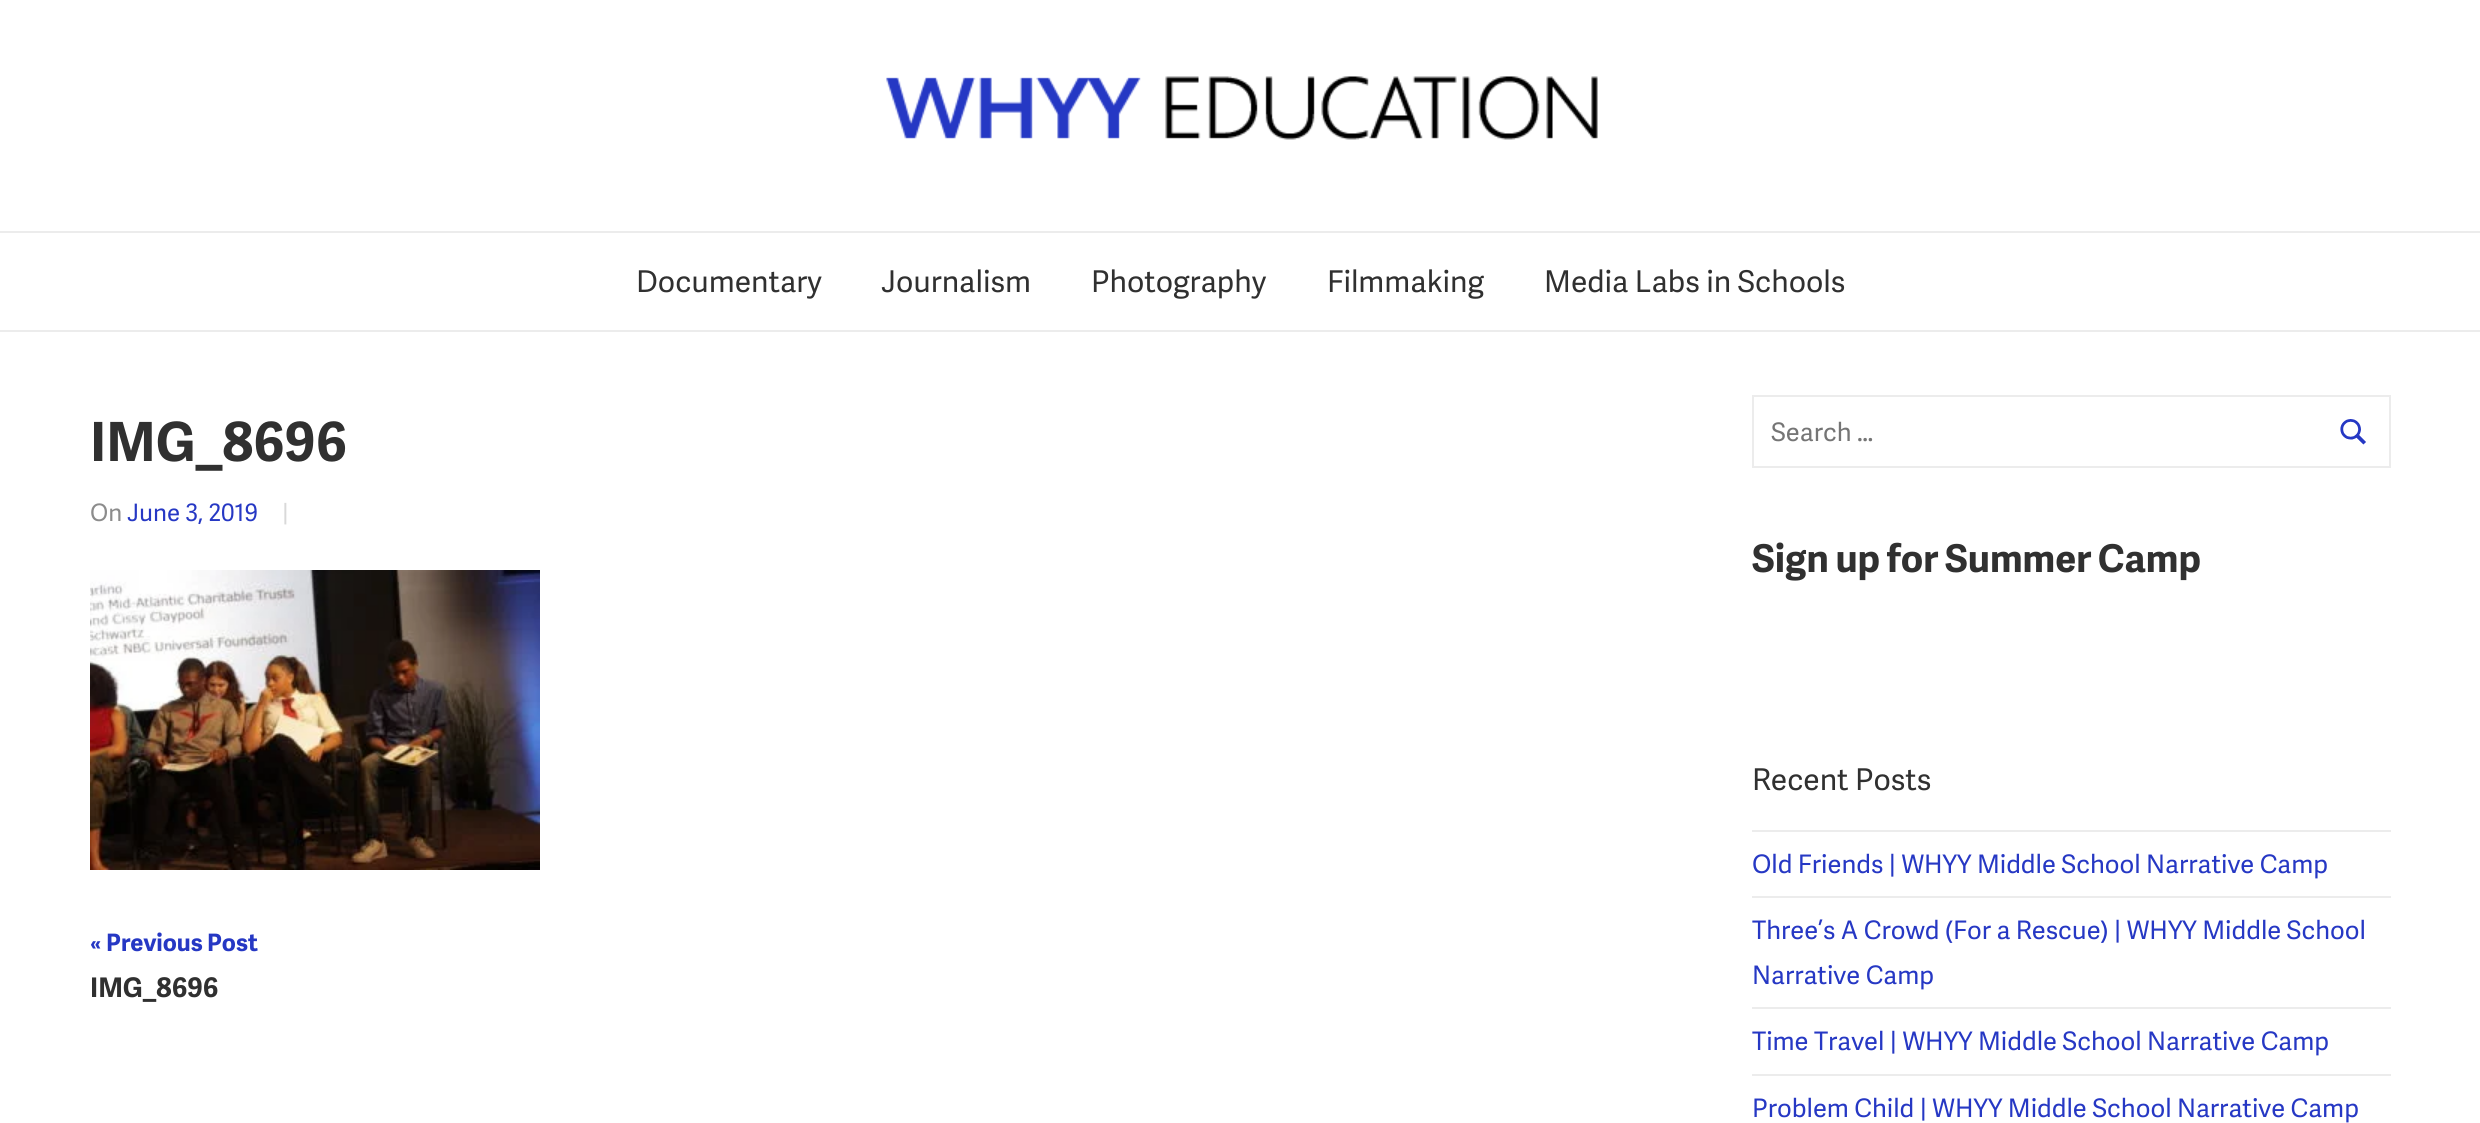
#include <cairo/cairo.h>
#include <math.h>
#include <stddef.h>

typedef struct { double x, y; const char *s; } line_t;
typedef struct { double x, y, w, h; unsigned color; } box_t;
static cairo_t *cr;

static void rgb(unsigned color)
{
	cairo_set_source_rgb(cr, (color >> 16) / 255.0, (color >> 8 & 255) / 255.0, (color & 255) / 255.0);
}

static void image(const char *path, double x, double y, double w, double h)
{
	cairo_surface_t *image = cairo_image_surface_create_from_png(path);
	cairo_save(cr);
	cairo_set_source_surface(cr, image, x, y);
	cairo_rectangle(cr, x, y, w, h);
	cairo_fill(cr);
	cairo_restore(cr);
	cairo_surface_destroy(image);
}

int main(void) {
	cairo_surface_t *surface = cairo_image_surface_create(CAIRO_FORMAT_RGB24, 2480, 1123);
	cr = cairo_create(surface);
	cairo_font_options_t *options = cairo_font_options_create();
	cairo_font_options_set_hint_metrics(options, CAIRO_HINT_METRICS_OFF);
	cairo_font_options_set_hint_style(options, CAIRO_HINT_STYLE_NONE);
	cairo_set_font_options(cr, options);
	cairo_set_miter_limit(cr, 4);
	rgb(0xffffff);
	cairo_paint(cr);
	rgb(0xececec);
	cairo_rectangle(cr, 0, 330, 2480, 2);
	cairo_fill(cr);
	image("img/1.png", 886, 76, 712, 64);
	cairo_rectangle(cr, 0, 231, 2480, 2);
	cairo_fill(cr);
	image("img/2.png", 90, 570, 450, 300);
	cairo_rectangle(cr, 1753, 396, 637, 71);
	cairo_stroke(cr);
	image("img/3.png", 2340, 419, 26, 26);
	{
		static const box_t items[] = {
			{1752, 830, 639, 2, 0xececec},
			{1752, 896, 639, 2, 0xececec},
			{1752, 1007, 639, 2, 0xececec},
			{1752, 1074, 639, 2, 0xececec},
		};
		for (size_t i = 0; i < sizeof items / sizeof *items; i++) {
			rgb(items[i].color);
			cairo_rectangle(cr, items[i].x, items[i].y, items[i].w, items[i].h);
			cairo_fill(cr);
		}
	}
	cairo_select_font_face(cr, "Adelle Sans", CAIRO_FONT_SLANT_NORMAL, CAIRO_FONT_WEIGHT_NORMAL);
	cairo_set_font_size(cr, 30);
	rgb(0x303030);
	{
		static const line_t items[] = {
			{636, 292, "Documentary"},
			{881, 292, "Journalism"},
			{1091, 292, "Photography"},
			{1327, 292, "Filmmaking"},
			{1544, 292, "Media Labs in Schools"},
		};
		for (size_t i = 0; i < sizeof items / sizeof *items; i++) {
			cairo_move_to(cr, items[i].x, items[i].y);
			cairo_show_text(cr, items[i].s);
		}
	}
	cairo_select_font_face(cr, "Adelle Sans", CAIRO_FONT_SLANT_NORMAL, CAIRO_FONT_WEIGHT_BOLD);
	cairo_set_font_size(cr, 54);
	cairo_move_to(cr, 90, 461);
	cairo_show_text(cr, "IMG_8696");
	cairo_select_font_face(cr, "Adelle Sans", CAIRO_FONT_SLANT_NORMAL, CAIRO_FONT_WEIGHT_NORMAL);
	cairo_set_font_size(cr, 24);
	rgb(0x8c8c8c);
	cairo_move_to(cr, 90, 521);
	cairo_show_text(cr, "On");
	rgb(0x2638c4);
	cairo_move_to(cr, 127, 521);
	cairo_show_text(cr, "June 3, 2019");
	rgb(0xd9d9d9);
	cairo_move_to(cr, 282, 521);
	cairo_show_text(cr, "|");
	cairo_select_font_face(cr, "Adelle Sans", CAIRO_FONT_SLANT_NORMAL, CAIRO_FONT_WEIGHT_BOLD);
	rgb(0x2638c4);
	cairo_move_to(cr, 90, 951);
	cairo_show_text(cr, "«");
	cairo_move_to(cr, 106, 951);
	cairo_show_text(cr, "Previous Post");
	cairo_set_font_size(cr, 27);
	rgb(0x303030);
	cairo_move_to(cr, 90, 997);
	cairo_show_text(cr, "IMG_8696");
	cairo_select_font_face(cr, "Adelle Sans", CAIRO_FONT_SLANT_NORMAL, CAIRO_FONT_WEIGHT_NORMAL);
	cairo_set_font_size(cr, 25.5);
	rgb(0x757575);
	cairo_move_to(cr, 1771, 441);
	cairo_show_text(cr, "Search …");
	cairo_select_font_face(cr, "Adelle Sans", CAIRO_FONT_SLANT_NORMAL, CAIRO_FONT_WEIGHT_BOLD);
	cairo_set_font_size(cr, 38.25);
	rgb(0x303030);
	cairo_move_to(cr, 1752, 572);
	cairo_show_text(cr, "Sign up for Summer Camp");
	cairo_select_font_face(cr, "Adelle Sans", CAIRO_FONT_SLANT_NORMAL, CAIRO_FONT_WEIGHT_NORMAL);
	cairo_set_font_size(cr, 30);
	cairo_move_to(cr, 1752, 790);
	cairo_show_text(cr, "Recent Posts");
	cairo_set_font_size(cr, 25.5);
	rgb(0x2638c4);
	{
		static const line_t items[] = {
			{1752, 873, "Old Friends | WHYY Middle School Narrative Camp"},
			{1752, 939, "Three’s A Crowd (For a Rescue) | WHYY Middle School"},
			{1752, 984, "Narrative Camp"},
			{1752, 1050, "Time Travel | WHYY Middle School Narrative Camp"},
			{1752, 1117, "Problem Child | WHYY Middle School Narrative Camp"},
		};
		for (size_t i = 0; i < sizeof items / sizeof *items; i++) {
			cairo_move_to(cr, items[i].x, items[i].y);
			cairo_show_text(cr, items[i].s);
		}
	}
	cairo_surface_write_to_png(surface, "page.png");
	cairo_font_options_destroy(options);
	cairo_destroy(cr);
	cairo_surface_destroy(surface);
	return 0;
}
